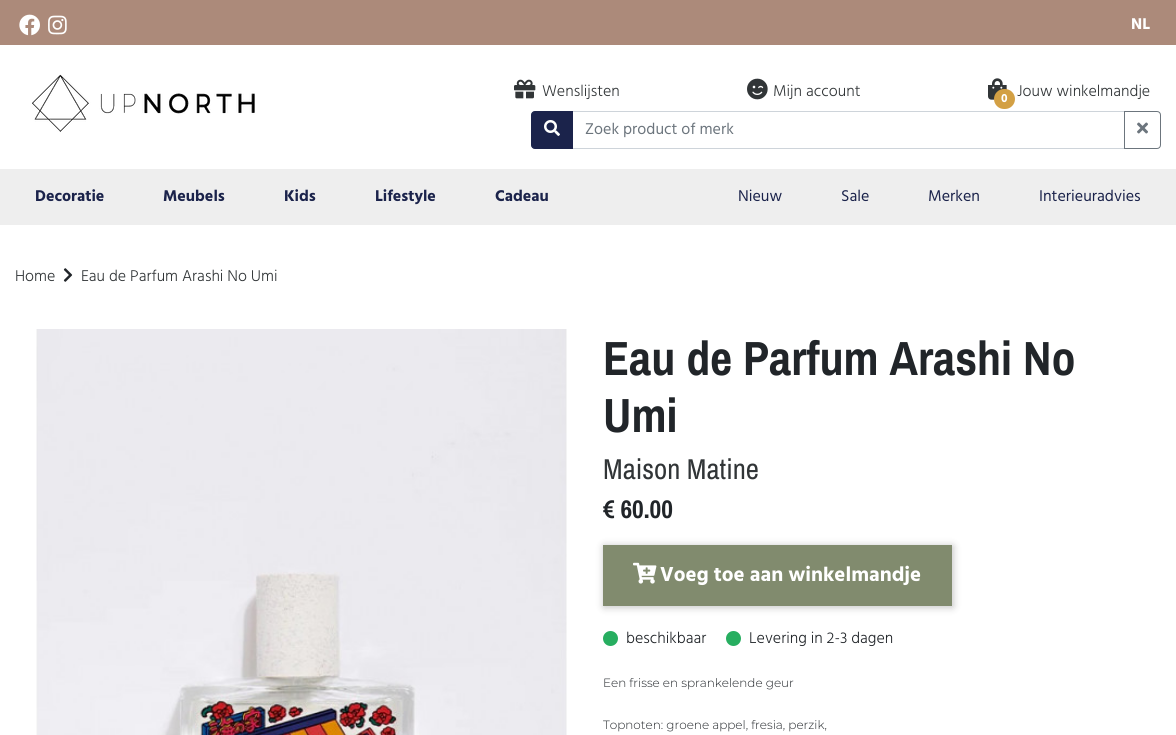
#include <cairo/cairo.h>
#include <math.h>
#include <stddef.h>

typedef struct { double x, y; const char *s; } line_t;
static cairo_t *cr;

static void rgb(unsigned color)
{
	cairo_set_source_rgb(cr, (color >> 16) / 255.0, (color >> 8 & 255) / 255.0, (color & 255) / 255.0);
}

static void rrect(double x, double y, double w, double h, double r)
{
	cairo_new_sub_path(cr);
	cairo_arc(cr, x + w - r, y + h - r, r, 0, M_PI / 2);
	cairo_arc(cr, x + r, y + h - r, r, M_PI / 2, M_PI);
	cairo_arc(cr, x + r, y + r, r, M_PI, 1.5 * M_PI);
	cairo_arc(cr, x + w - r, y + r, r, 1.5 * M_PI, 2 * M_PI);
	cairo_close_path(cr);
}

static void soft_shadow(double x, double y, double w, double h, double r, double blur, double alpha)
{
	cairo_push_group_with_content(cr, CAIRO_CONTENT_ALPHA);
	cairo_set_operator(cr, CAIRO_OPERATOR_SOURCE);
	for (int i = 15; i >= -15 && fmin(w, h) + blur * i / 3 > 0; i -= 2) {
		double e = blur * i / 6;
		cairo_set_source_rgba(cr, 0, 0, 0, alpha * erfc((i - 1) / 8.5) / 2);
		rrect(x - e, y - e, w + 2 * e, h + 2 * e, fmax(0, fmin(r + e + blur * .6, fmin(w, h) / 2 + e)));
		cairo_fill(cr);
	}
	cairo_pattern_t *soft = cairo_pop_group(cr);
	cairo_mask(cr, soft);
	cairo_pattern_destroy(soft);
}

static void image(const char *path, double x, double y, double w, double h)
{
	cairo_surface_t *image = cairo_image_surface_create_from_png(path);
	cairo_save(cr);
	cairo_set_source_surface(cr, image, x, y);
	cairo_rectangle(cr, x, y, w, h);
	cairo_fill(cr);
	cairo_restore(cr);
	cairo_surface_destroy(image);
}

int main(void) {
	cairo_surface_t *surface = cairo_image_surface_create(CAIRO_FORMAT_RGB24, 1176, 735);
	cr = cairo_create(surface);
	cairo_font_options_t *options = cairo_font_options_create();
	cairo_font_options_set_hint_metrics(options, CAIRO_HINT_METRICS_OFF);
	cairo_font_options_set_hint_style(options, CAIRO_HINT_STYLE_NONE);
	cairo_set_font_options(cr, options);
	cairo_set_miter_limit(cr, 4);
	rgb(0xffffff);
	cairo_paint(cr);
	rgb(0xac8a7a);
	cairo_rectangle(cr, 0, 0, 1176, 45);
	cairo_fill(cr);
	image("img/1.png", 19, 14, 21, 22);
	image("img/2.png", 48, 15, 19, 20);
	image("img/3.png", 32, 74, 223, 58);
	image("img/4.png", 514, 79, 22, 20);
	image("img/5.png", 747, 78, 21, 22);
	image("img/6.png", 988, 78, 19, 22);
	rgb(0xd3a044);
	rrect(994, 89, 21, 20, 10);
	cairo_fill(cr);
	cairo_rectangle(cr, 572.5, 111.5, 552, 37);
	rgb(0xced4da);
	cairo_set_line_width(cr, 1);
	cairo_stroke(cr);
	rgb(0x1b234b);
	cairo_new_path(cr);
	cairo_move_to(cr, 535, 111.5);
	cairo_line_to(cr, 572.5, 111.5);
	cairo_line_to(cr, 572.5, 148.5);
	cairo_line_to(cr, 535, 148.5);
	cairo_curve_to(cr, 533, 148.5, 531.5, 147, 531.5, 145);
	cairo_line_to(cr, 531.5, 115);
	cairo_curve_to(cr, 531.5, 113, 533, 111.5, 535, 111.5);
	cairo_close_path(cr);
	cairo_fill_preserve(cr);
	cairo_stroke(cr);
	image("img/7.png", 544, 120, 16, 16);
	cairo_new_path(cr);
	cairo_move_to(cr, 1124.5, 111.5);
	cairo_line_to(cr, 1157, 111.5);
	cairo_curve_to(cr, 1159, 111.5, 1160.5, 113, 1160.5, 115);
	cairo_line_to(cr, 1160.5, 145);
	cairo_curve_to(cr, 1160.5, 147, 1159, 148.5, 1157, 148.5);
	cairo_line_to(cr, 1124.5, 148.5);
	cairo_close_path(cr);
	rgb(0x6c757d);
	cairo_stroke(cr);
	image("img/8.png", 1137, 122, 11, 12);
	rgb(0xeeeeee);
	cairo_rectangle(cr, 0, 169, 1176, 56);
	cairo_fill(cr);
	image("img/9.png", 63, 268, 10, 14);
	image("img/10.png", 36, 329, 531, 406);
	rgb(0x000000);
	soft_shadow(604, 546, 349, 61, 0, 4, 0.25);
	rgb(0x818b6e);
	cairo_rectangle(cr, 603, 545, 349, 61);
	cairo_fill(cr);
	image("img/11.png", 633, 562, 24, 22);
	rgb(0x27ae60);
	cairo_arc(cr, 610.5, 638.5, 7.5, 0, 2 * M_PI);
	cairo_fill(cr);
	cairo_arc(cr, 733.5, 638.5, 7.5, 0, 2 * M_PI);
	cairo_fill(cr);
	cairo_select_font_face(cr, "Hind", CAIRO_FONT_SLANT_NORMAL, CAIRO_FONT_WEIGHT_BOLD);
	cairo_set_font_size(cr, 16);
	rgb(0xffffff);
	cairo_move_to(cr, 1131, 29);
	cairo_show_text(cr, "NL");
	cairo_select_font_face(cr, "Hind Light", CAIRO_FONT_SLANT_NORMAL, CAIRO_FONT_WEIGHT_NORMAL);
	rgb(0x313537);
	cairo_move_to(cr, 542, 96);
	cairo_show_text(cr, "Wenslijsten");
	cairo_move_to(cr, 773, 96);
	cairo_show_text(cr, "Mijn account");
	cairo_select_font_face(cr, "Hind", CAIRO_FONT_SLANT_NORMAL, CAIRO_FONT_WEIGHT_BOLD);
	cairo_set_font_size(cr, 12);
	rgb(0xffffff);
	cairo_move_to(cr, 1001, 102);
	cairo_show_text(cr, "0");
	cairo_select_font_face(cr, "Hind Light", CAIRO_FONT_SLANT_NORMAL, CAIRO_FONT_WEIGHT_NORMAL);
	cairo_set_font_size(cr, 16);
	rgb(0x313537);
	cairo_move_to(cr, 1017, 96);
	cairo_show_text(cr, "Jouw winkelmandje");
	cairo_select_font_face(cr, "Hind", CAIRO_FONT_SLANT_NORMAL, CAIRO_FONT_WEIGHT_NORMAL);
	rgb(0x6c757d);
	cairo_move_to(cr, 585, 134);
	cairo_show_text(cr, "Zoek product of merk");
	cairo_select_font_face(cr, "Hind", CAIRO_FONT_SLANT_NORMAL, CAIRO_FONT_WEIGHT_BOLD);
	rgb(0x1b234b);
	{
		static const line_t items[] = {
			{35, 201, "Decoratie"},
			{163, 201, "Meubels"},
			{284, 201, "Kids"},
			{375, 201, "Lifestyle"},
			{495, 201, "Cadeau"},
		};
		for (size_t i = 0; i < sizeof items / sizeof *items; i++) {
			cairo_move_to(cr, items[i].x, items[i].y);
			cairo_show_text(cr, items[i].s);
		}
	}
	cairo_select_font_face(cr, "Hind", CAIRO_FONT_SLANT_NORMAL, CAIRO_FONT_WEIGHT_NORMAL);
	{
		static const line_t items[] = {
			{738, 201, "Nieuw"},
			{841, 201, "Sale"},
			{928, 201, "Merken"},
			{1039, 201, "Interieuradvies"},
		};
		for (size_t i = 0; i < sizeof items / sizeof *items; i++) {
			cairo_move_to(cr, items[i].x, items[i].y);
			cairo_show_text(cr, items[i].s);
		}
	}
	cairo_select_font_face(cr, "Hind Light", CAIRO_FONT_SLANT_NORMAL, CAIRO_FONT_WEIGHT_NORMAL);
	rgb(0x313537);
	cairo_move_to(cr, 15, 281);
	cairo_show_text(cr, "Home");
	cairo_move_to(cr, 81, 281);
	cairo_show_text(cr, "Eau de Parfum Arashi No Umi");
	cairo_select_font_face(cr, "Archivo Narrow", CAIRO_FONT_SLANT_NORMAL, CAIRO_FONT_WEIGHT_BOLD);
	cairo_set_font_size(cr, 48);
	rgb(0x212529);
	cairo_move_to(cr, 603, 375);
	cairo_show_text(cr, "Eau de Parfum Arashi No");
	cairo_move_to(cr, 603, 432);
	cairo_show_text(cr, "Umi");
	cairo_select_font_face(cr, "Archivo Narrow", CAIRO_FONT_SLANT_NORMAL, CAIRO_FONT_WEIGHT_NORMAL);
	cairo_set_font_size(cr, 28.75);
	rgb(0x313537);
	cairo_move_to(cr, 603, 479);
	cairo_show_text(cr, "Maison Matine");
	cairo_select_font_face(cr, "Archivo Narrow", CAIRO_FONT_SLANT_NORMAL, CAIRO_FONT_WEIGHT_BOLD);
	cairo_set_font_size(cr, 25.5);
	rgb(0x212529);
	cairo_move_to(cr, 603, 518);
	cairo_show_text(cr, "€ 60.00");
	cairo_select_font_face(cr, "Hind", CAIRO_FONT_SLANT_NORMAL, CAIRO_FONT_WEIGHT_BOLD);
	cairo_set_font_size(cr, 20.75);
	rgb(0xffffff);
	cairo_move_to(cr, 660, 581);
	cairo_show_text(cr, "Voeg toe aan winkelmandje");
	cairo_select_font_face(cr, "Hind Light", CAIRO_FONT_SLANT_NORMAL, CAIRO_FONT_WEIGHT_NORMAL);
	cairo_set_font_size(cr, 16);
	rgb(0x212529);
	cairo_move_to(cr, 626, 643);
	cairo_show_text(cr, "beschikbaar");
	cairo_move_to(cr, 749, 643);
	cairo_show_text(cr, "Levering in 2-3 dagen");
	cairo_select_font_face(cr, "Montserrat Light", CAIRO_FONT_SLANT_NORMAL, CAIRO_FONT_WEIGHT_NORMAL);
	cairo_set_font_size(cr, 12);
	cairo_move_to(cr, 603, 687);
	cairo_show_text(cr, "Een frisse en sprankelende geur");
	cairo_move_to(cr, 603, 729);
	cairo_show_text(cr, "Topnoten: groene appel, fresia, perzik,");
	cairo_surface_write_to_png(surface, "page.png");
	cairo_font_options_destroy(options);
	cairo_destroy(cr);
	cairo_surface_destroy(surface);
	return 0;
}
